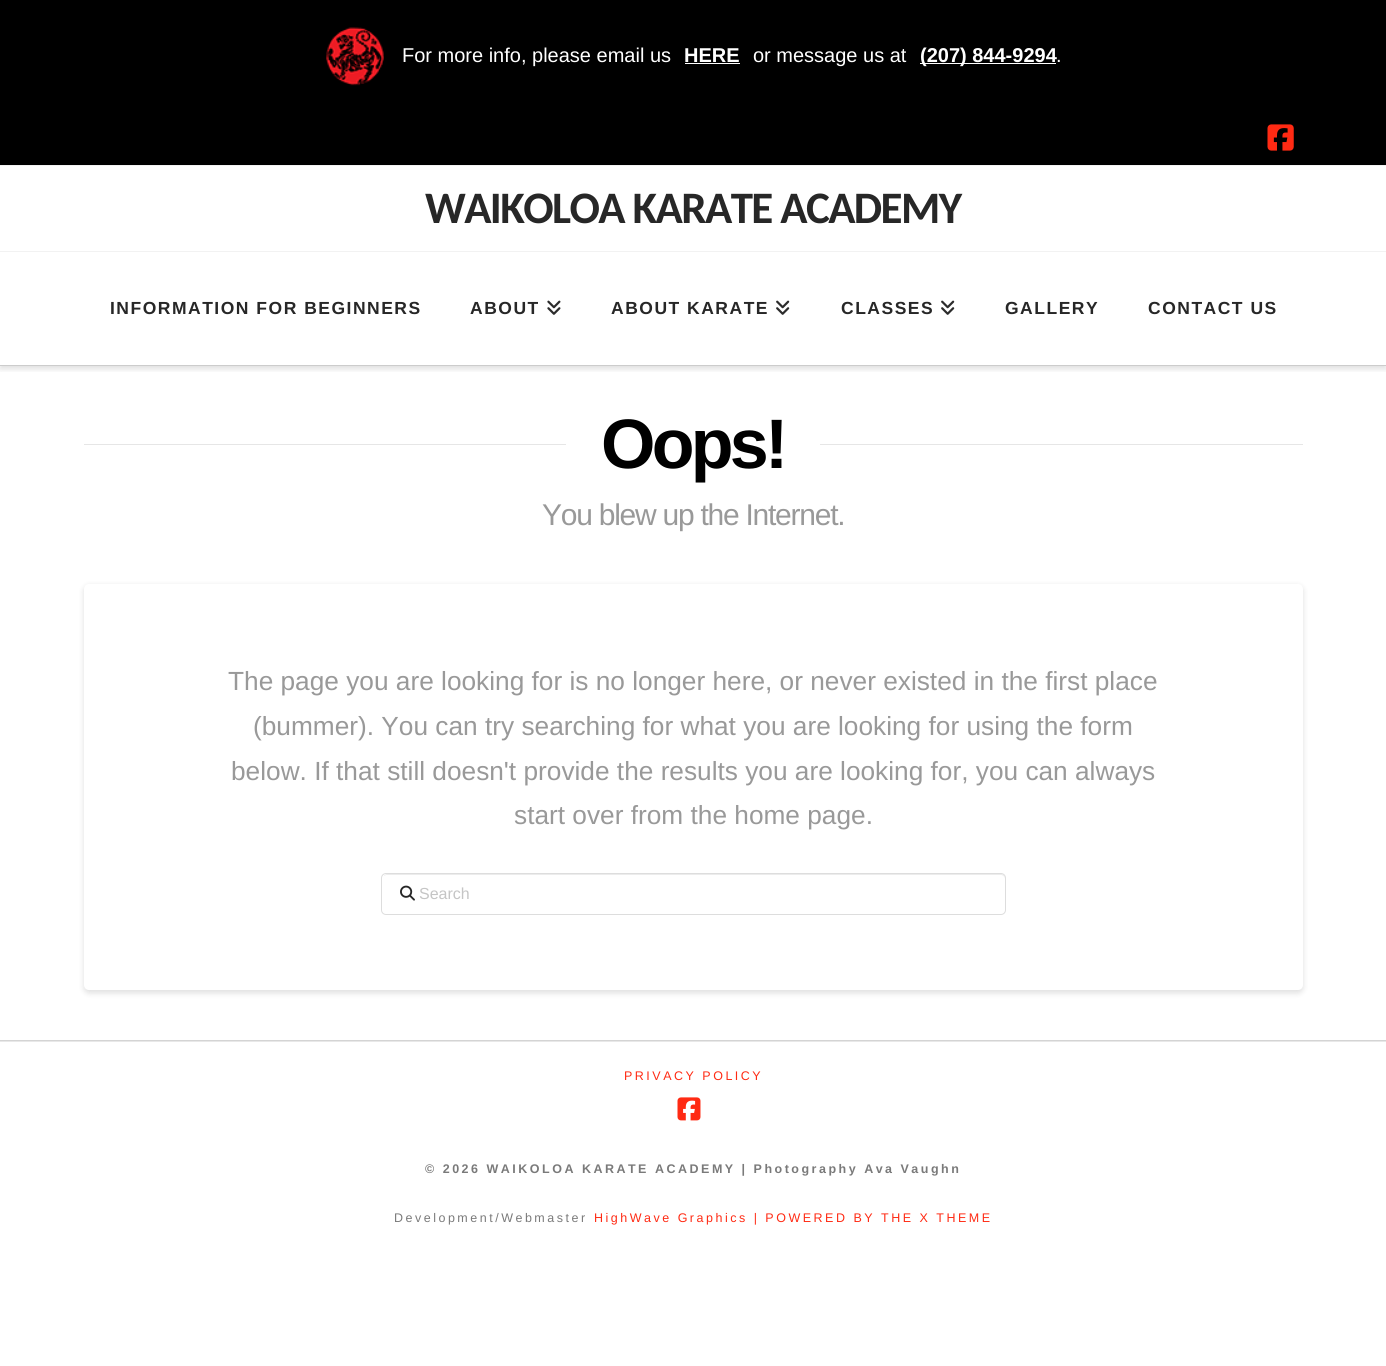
#include <cairo/cairo.h>
#include <math.h>
#include <stddef.h>

typedef struct { double x, y; const char *s; } line_t;
static cairo_t *cr;

static void rgb(unsigned color)
{
	cairo_set_source_rgb(cr, (color >> 16) / 255.0, (color >> 8 & 255) / 255.0, (color & 255) / 255.0);
}

static void tracked(double x, double y, const char *s, double letter, double word)
{
	cairo_move_to(cr, x, y);
	while (*s) {
		char ch[5] = {0};
		int n = 0;
		do ch[n++] = *s++; while ((*s & 0xC0) == 0x80);
		cairo_show_text(cr, ch);
		cairo_rel_move_to(cr, letter + word * (*ch == ' '), 0);
	}
}

static void rrect(double x, double y, double w, double h, double r)
{
	cairo_new_sub_path(cr);
	cairo_arc(cr, x + w - r, y + h - r, r, 0, M_PI / 2);
	cairo_arc(cr, x + r, y + h - r, r, M_PI / 2, M_PI);
	cairo_arc(cr, x + r, y + r, r, M_PI, 1.5 * M_PI);
	cairo_arc(cr, x + w - r, y + r, r, 1.5 * M_PI, 2 * M_PI);
	cairo_close_path(cr);
}

static void soft_shadow(double x, double y, double w, double h, double r, double blur, double alpha)
{
	cairo_push_group_with_content(cr, CAIRO_CONTENT_ALPHA);
	cairo_set_operator(cr, CAIRO_OPERATOR_SOURCE);
	for (int i = 15; i >= -15 && fmin(w, h) + blur * i / 3 > 0; i -= 2) {
		double e = blur * i / 6;
		cairo_set_source_rgba(cr, 0, 0, 0, alpha * erfc((i - 1) / 8.5) / 2);
		rrect(x - e, y - e, w + 2 * e, h + 2 * e, fmax(0, fmin(r + e + blur * .6, fmin(w, h) / 2 + e)));
		cairo_fill(cr);
	}
	cairo_pattern_t *soft = cairo_pop_group(cr);
	cairo_mask(cr, soft);
	cairo_pattern_destroy(soft);
}

static void image(const char *path, double x, double y, double w, double h)
{
	cairo_surface_t *image = cairo_image_surface_create_from_png(path);
	cairo_save(cr);
	cairo_set_source_surface(cr, image, x, y);
	cairo_rectangle(cr, x, y, w, h);
	cairo_fill(cr);
	cairo_restore(cr);
	cairo_surface_destroy(image);
}

int main(void) {
	cairo_surface_t *surface = cairo_image_surface_create(CAIRO_FORMAT_RGB24, 1386, 1366);
	cr = cairo_create(surface);
	cairo_font_options_t *options = cairo_font_options_create();
	cairo_font_options_set_hint_metrics(options, CAIRO_HINT_METRICS_OFF);
	cairo_font_options_set_hint_style(options, CAIRO_HINT_STYLE_NONE);
	cairo_set_font_options(cr, options);
	cairo_set_miter_limit(cr, 4);
	rgb(0xffffff);
	cairo_paint(cr);
	rgb(0x000000);
	cairo_rectangle(cr, 0, 0, 1386, 165);
	cairo_fill(cr);
	rgb(0xf2f2f2);
	cairo_rectangle(cr, 0, 165, 1386, 1);
	cairo_fill(cr);
	image("img/1.png", 326, 27, 58, 59);
	rgb(0xffffff);
	cairo_rectangle(cr, 685, 63, 55, 1);
	cairo_fill(cr);
	cairo_rectangle(cr, 920, 63, 136, 1);
	cairo_fill(cr);
	image("img/2.png", 1267, 124, 27, 27);
	rgb(0xf2f2f2);
	cairo_rectangle(cr, 0, 251, 1386, 1);
	cairo_fill(cr);
	cairo_save(cr);
	cairo_rectangle(cr, 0, 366, 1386, 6);
	cairo_clip(cr);
	rgb(0x000000);
	soft_shadow(0, 255, 1386, 114, 0, 3, 0.13);
	cairo_restore(cr);
	rgb(0xcccccc);
	cairo_rectangle(cr, 0, 365, 1386, 1);
	cairo_fill(cr);
	image("img/3.png", 547, 300, 14, 15);
	image("img/4.png", 776, 300, 14, 15);
	image("img/4.png", 941, 300, 14, 15);
	rgb(0xe6e6e6);
	cairo_rectangle(cr, 84, 444, 482, 1);
	cairo_fill(cr);
	cairo_rectangle(cr, 820, 444, 483, 1);
	cairo_fill(cr);
	rgb(0x000000);
	soft_shadow(84, 586, 1219, 407, 5, 3, 0.13);
	rgb(0xffffff);
	rrect(84, 584, 1219, 406, 5);
	cairo_fill(cr);
	rgb(0xececec);
	cairo_new_path(cr);
	cairo_move_to(cr, 386, 875);
	cairo_line_to(cr, 1001, 875);
	cairo_curve_to(cr, 1003, 875, 1005, 877, 1005, 879);
	cairo_line_to(cr, 1005, 878);
	cairo_curve_to(cr, 1005, 876, 1003, 874, 1001, 874);
	cairo_line_to(cr, 387, 874);
	cairo_curve_to(cr, 386, 874, 384, 875, 384, 876);
	cairo_close_path(cr);
	cairo_fill(cr);
	rrect(381.5, 873.5, 624, 41, 4.5);
	rgb(0xdddddd);
	cairo_set_line_width(cr, 1);
	cairo_stroke(cr);
	image("img/5.png", 400, 885, 15, 16);
	rgb(0xd4d4d4);
	cairo_rectangle(cr, 0, 1040, 1386, 1);
	cairo_fill(cr);
	rgb(0xe8e8e8);
	cairo_rectangle(cr, 0, 1041, 1386, 1);
	cairo_fill(cr);
	image("img/6.png", 677, 1097, 24, 24);
	cairo_select_font_face(cr, "Liberation Sans", CAIRO_FONT_SLANT_NORMAL, CAIRO_FONT_WEIGHT_NORMAL);
	cairo_set_font_size(cr, 20);
	rgb(0xffffff);
	cairo_move_to(cr, 402, 62);
	cairo_show_text(cr, "For more info, please email us");
	cairo_select_font_face(cr, "Liberation Sans", CAIRO_FONT_SLANT_NORMAL, CAIRO_FONT_WEIGHT_BOLD);
	cairo_move_to(cr, 684, 62);
	cairo_show_text(cr, "HERE");
	cairo_select_font_face(cr, "Liberation Sans", CAIRO_FONT_SLANT_NORMAL, CAIRO_FONT_WEIGHT_NORMAL);
	cairo_move_to(cr, 753, 62);
	cairo_show_text(cr, "or message us at");
	cairo_select_font_face(cr, "Liberation Sans", CAIRO_FONT_SLANT_NORMAL, CAIRO_FONT_WEIGHT_BOLD);
	cairo_move_to(cr, 920, 62);
	cairo_show_text(cr, "(207) 844-9294");
	cairo_select_font_face(cr, "Liberation Sans", CAIRO_FONT_SLANT_NORMAL, CAIRO_FONT_WEIGHT_NORMAL);
	cairo_move_to(cr, 1056, 62);
	cairo_show_text(cr, ".");
	cairo_select_font_face(cr, "Carlito", CAIRO_FONT_SLANT_NORMAL, CAIRO_FONT_WEIGHT_BOLD);
	cairo_set_font_size(cr, 45);
	rgb(0x272727);
	tracked(425, 223, "WAIKOLOA KARATE ACADEMY", -1.6, 0);
	cairo_select_font_face(cr, "Liberation Sans", CAIRO_FONT_SLANT_NORMAL, CAIRO_FONT_WEIGHT_BOLD);
	cairo_set_font_size(cr, 17.5);
	{
		static const line_t items[] = {
			{110, 314, "INFORMATION FOR BEGINNERS"},
			{470, 314, "ABOUT"},
			{611, 314, "ABOUT KARATE"},
			{841, 314, "CLASSES"},
			{1005, 314, "GALLERY"},
			{1148, 314, "CONTACT US"},
		};
		for (size_t i = 0; i < sizeof items / sizeof *items; i++) {
			tracked(items[i].x, items[i].y, items[i].s, 1.5, 0);
		}
	}
	cairo_set_font_size(cr, 70);
	rgb(0x000000);
	tracked(601, 468, "Oops!", -3.75, 0);
	cairo_select_font_face(cr, "Liberation Sans", CAIRO_FONT_SLANT_NORMAL, CAIRO_FONT_WEIGHT_NORMAL);
	cairo_set_font_size(cr, 30);
	rgb(0x999999);
	tracked(542, 525, "You blew up the Internet.", -1.25, 0);
	cairo_set_font_size(cr, 26.25);
	{
		static const line_t items[] = {
			{228, 690, "The page you are looking for is no longer here, or never existed in the first place"},
			{253, 735, "(bummer). You can try searching for what you are looking for using the form"},
			{231, 780, "below. If that still doesn't provide the results you are looking for, you can always"},
			{514, 824, "start over from the home page."},
		};
		for (size_t i = 0; i < sizeof items / sizeof *items; i++) {
			cairo_move_to(cr, items[i].x, items[i].y);
			cairo_show_text(cr, items[i].s);
		}
	}
	cairo_set_font_size(cr, 16);
	rgb(0xc5c5c5);
	cairo_move_to(cr, 419, 899);
	cairo_show_text(cr, "Search");
	cairo_set_font_size(cr, 12.5);
	rgb(0xff2a13);
	tracked(624, 1080, "PRIVACY POLICY", 2.5, 0);
	cairo_select_font_face(cr, "Liberation Sans", CAIRO_FONT_SLANT_NORMAL, CAIRO_FONT_WEIGHT_BOLD);
	rgb(0x7a7a7a);
	tracked(425, 1173, "© 2026 WAIKOLOA KARATE ACADEMY | Photography Ava Vaughn", 2.5, 0);
	cairo_select_font_face(cr, "Liberation Sans", CAIRO_FONT_SLANT_NORMAL, CAIRO_FONT_WEIGHT_NORMAL);
	tracked(394, 1222, "Development/Webmaster", 2.5, 0);
	rgb(0xff2a13);
	tracked(594, 1222, "HighWave Graphics | POWERED BY THE X THEME", 2.5, 0);
	cairo_surface_write_to_png(surface, "page.png");
	cairo_font_options_destroy(options);
	cairo_destroy(cr);
	cairo_surface_destroy(surface);
	return 0;
}
